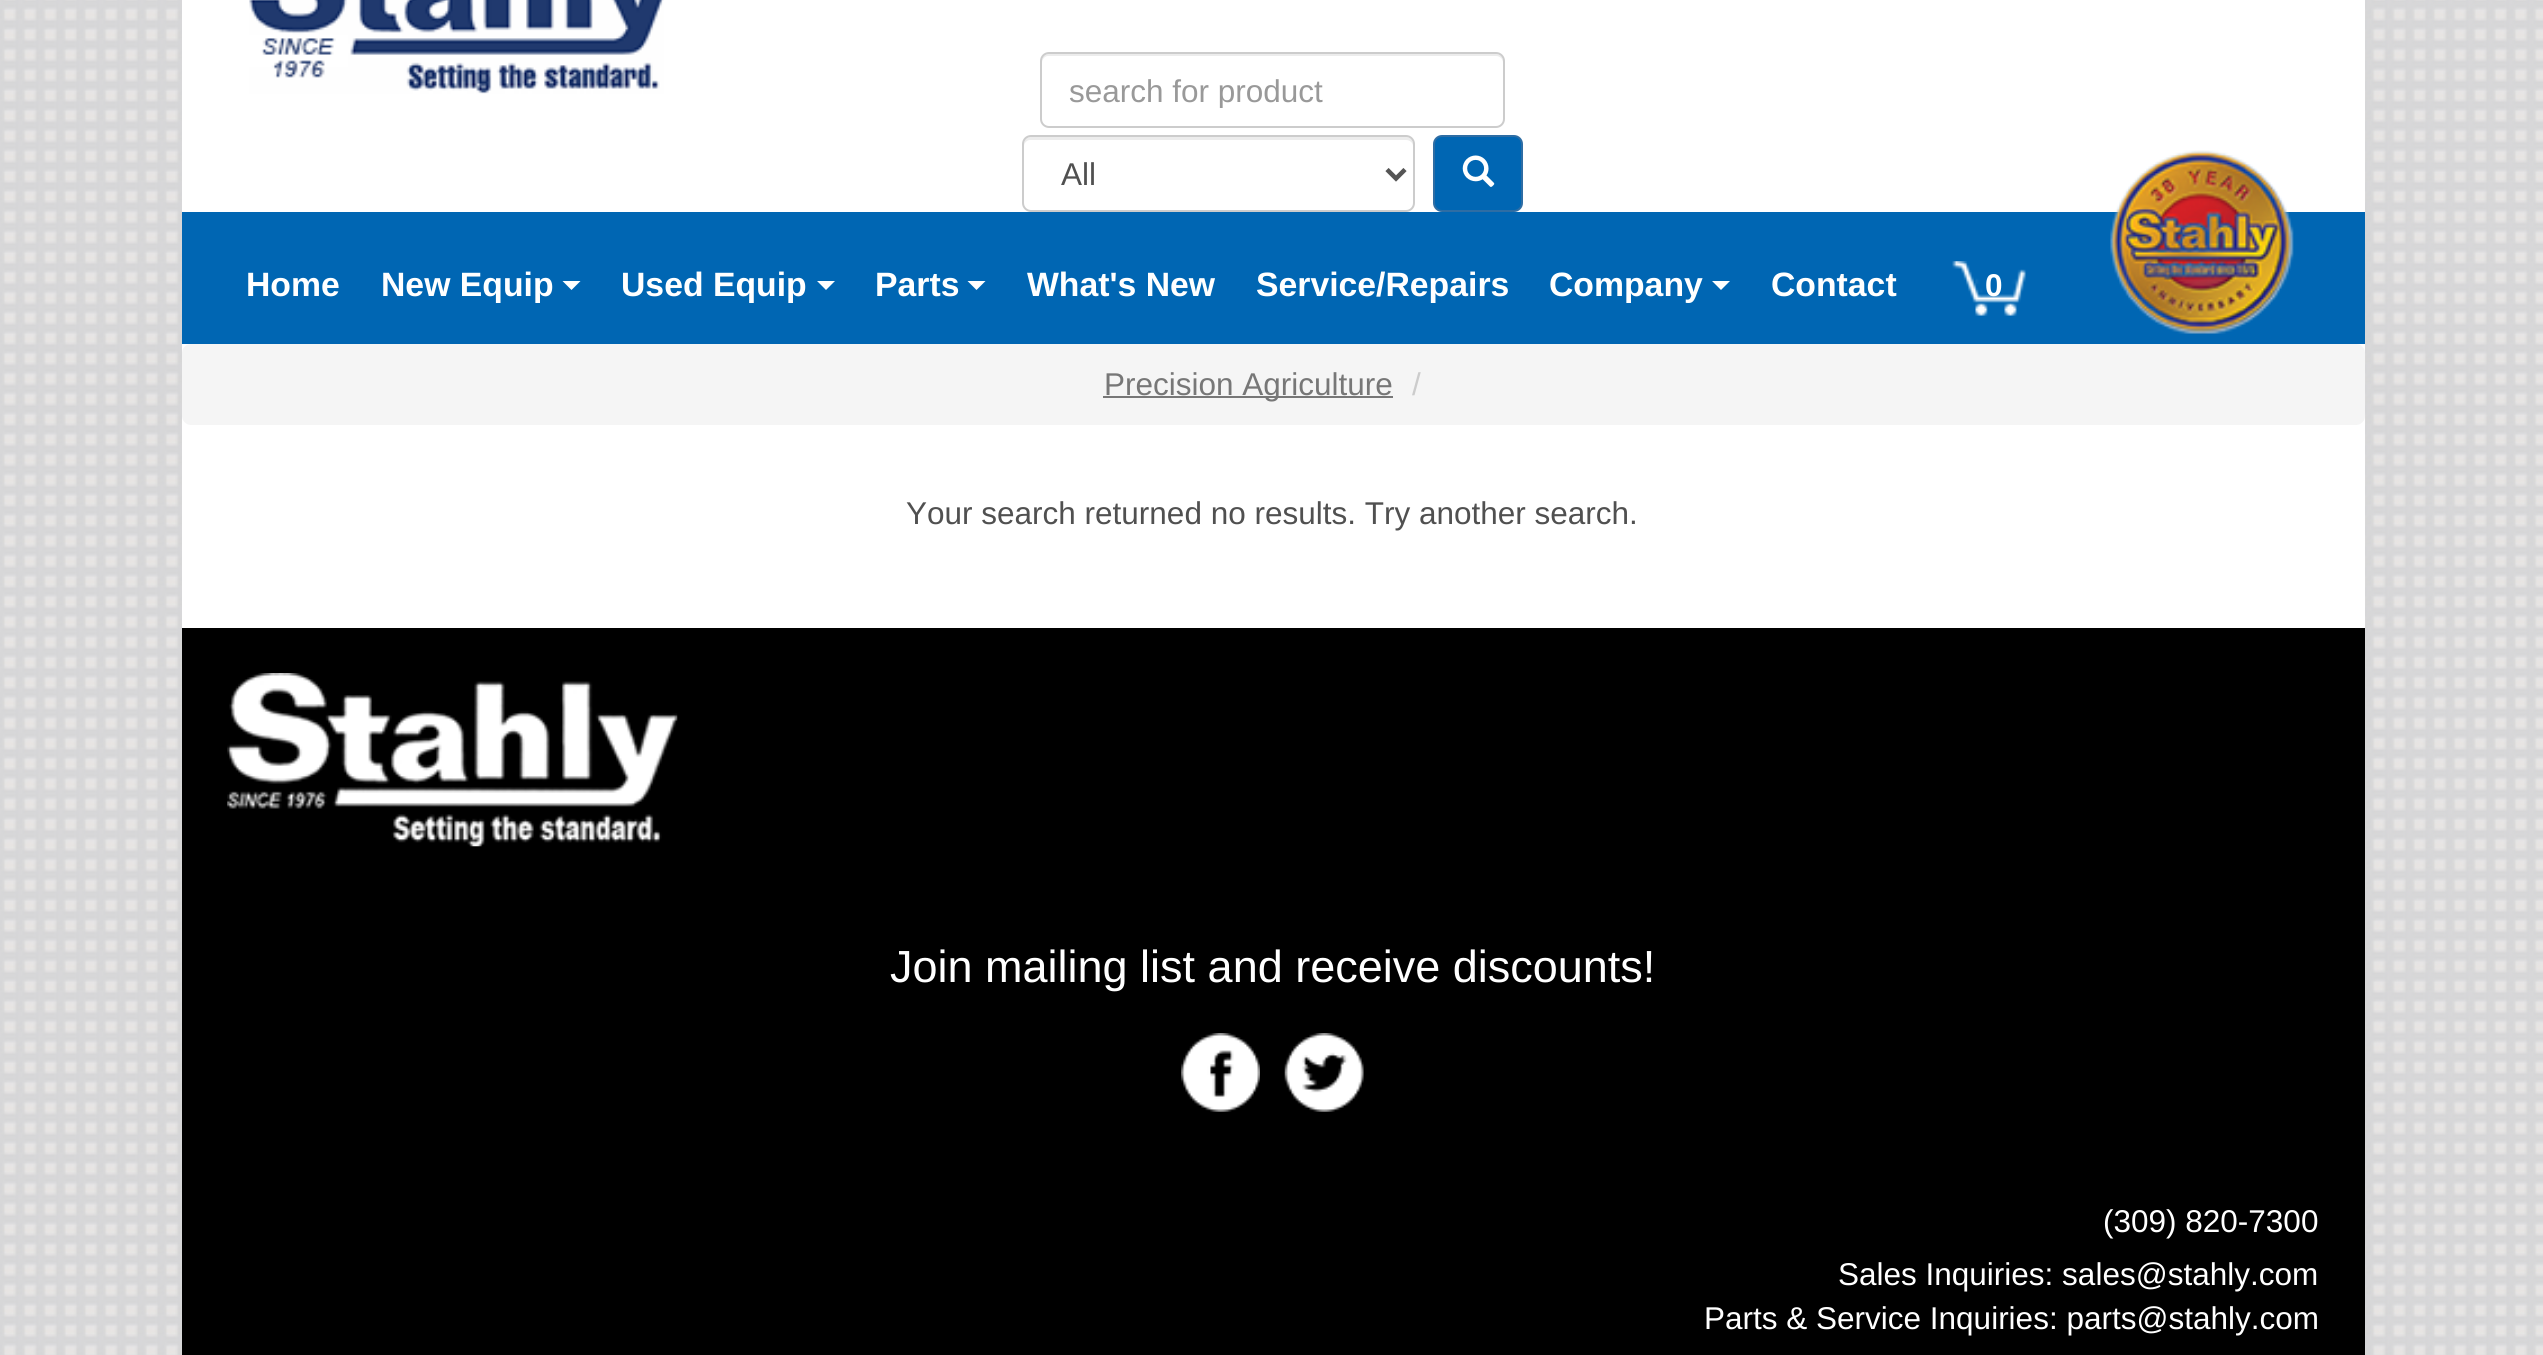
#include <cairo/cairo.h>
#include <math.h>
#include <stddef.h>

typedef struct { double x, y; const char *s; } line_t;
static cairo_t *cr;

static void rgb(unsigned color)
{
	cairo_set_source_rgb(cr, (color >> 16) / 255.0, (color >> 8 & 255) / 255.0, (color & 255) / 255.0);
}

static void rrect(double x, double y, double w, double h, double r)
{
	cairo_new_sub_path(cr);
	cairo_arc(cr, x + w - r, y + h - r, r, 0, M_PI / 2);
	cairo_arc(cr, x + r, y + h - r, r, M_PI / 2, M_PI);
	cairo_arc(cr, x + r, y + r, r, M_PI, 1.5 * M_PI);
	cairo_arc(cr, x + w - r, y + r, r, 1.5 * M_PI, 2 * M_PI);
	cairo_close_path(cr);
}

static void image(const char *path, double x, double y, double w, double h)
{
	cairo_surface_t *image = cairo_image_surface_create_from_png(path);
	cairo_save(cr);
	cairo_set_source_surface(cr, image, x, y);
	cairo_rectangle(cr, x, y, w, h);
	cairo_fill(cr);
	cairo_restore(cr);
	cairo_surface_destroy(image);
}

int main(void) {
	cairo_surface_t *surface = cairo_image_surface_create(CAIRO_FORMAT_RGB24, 2543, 1355);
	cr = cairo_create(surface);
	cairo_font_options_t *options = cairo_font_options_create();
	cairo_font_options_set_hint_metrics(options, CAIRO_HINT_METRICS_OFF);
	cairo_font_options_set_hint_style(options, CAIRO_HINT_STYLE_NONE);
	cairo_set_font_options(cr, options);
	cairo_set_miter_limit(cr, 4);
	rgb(0xffffff);
	cairo_paint(cr);
	image("img/1.png", 0, 0, 2543, 1355);
	rgb(0xffffff);
	cairo_rectangle(cr, 182, 0, 2183, 212);
	cairo_fill(cr);
	image("img/2.png", 249, 0, 415, 94);
	rgb(0xececec);
	cairo_new_path(cr);
	cairo_move_to(cr, 1048, 56);
	cairo_line_to(cr, 1496, 56);
	cairo_curve_to(cr, 1500, 56, 1503, 59, 1503, 63);
	cairo_line_to(cr, 1503, 61);
	cairo_curve_to(cr, 1503, 57, 1500, 54, 1496, 54);
	cairo_line_to(cr, 1049, 54);
	cairo_curve_to(cr, 1045, 54, 1042, 57, 1042, 61);
	cairo_line_to(cr, 1042, 63);
	cairo_curve_to(cr, 1042, 59, 1045, 56, 1048, 56);
	cairo_close_path(cr);
	cairo_fill(cr);
	rrect(1041, 53, 463, 74, 8);
	rgb(0xcccccc);
	cairo_stroke(cr);
	rgb(0xececec);
	cairo_new_path(cr);
	cairo_move_to(cr, 1030, 140);
	cairo_line_to(cr, 1406, 140);
	cairo_curve_to(cr, 1410, 140, 1413, 143, 1413, 146);
	cairo_line_to(cr, 1413, 144);
	cairo_curve_to(cr, 1413, 140, 1410, 137, 1406, 137);
	cairo_line_to(cr, 1031, 137);
	cairo_curve_to(cr, 1027, 137, 1024, 140, 1024, 144);
	cairo_line_to(cr, 1024, 146);
	cairo_curve_to(cr, 1024, 143, 1027, 140, 1030, 140);
	cairo_close_path(cr);
	cairo_fill(cr);
	rrect(1023, 136, 391, 75, 8);
	rgb(0xcccccc);
	cairo_stroke(cr);
	cairo_new_path(cr);
	cairo_move_to(cr, 1387, 169.5);
	cairo_line_to(cr, 1396, 178.5);
	cairo_line_to(cr, 1405, 169.5);
	rgb(0x555555);
	cairo_set_line_width(cr, 4.5);
	cairo_stroke(cr);
	rgb(0x0066b3);
	rrect(1434, 136, 88, 75, 8);
	cairo_fill_preserve(cr);
	rgb(0x2e6da4);
	cairo_set_line_width(cr, 2);
	cairo_stroke(cr);
	image("img/3.png", 1462, 155, 33, 32);
	rgb(0x0066b3);
	cairo_rectangle(cr, 182, 212, 2183, 132);
	cairo_fill(cr);
	rgb(0xffffff);
	cairo_new_path(cr);
	cairo_move_to(cr, 562.5, 281);
	cairo_line_to(cr, 580.5, 281);
	cairo_line_to(cr, 571.5, 290);
	cairo_close_path(cr);
	cairo_fill(cr);
	cairo_new_path(cr);
	cairo_move_to(cr, 817, 281);
	cairo_line_to(cr, 835, 281);
	cairo_line_to(cr, 826, 290);
	cairo_close_path(cr);
	cairo_fill(cr);
	cairo_new_path(cr);
	cairo_move_to(cr, 967.5, 281);
	cairo_line_to(cr, 985.5, 281);
	cairo_line_to(cr, 976.5, 290);
	cairo_close_path(cr);
	cairo_fill(cr);
	cairo_new_path(cr);
	cairo_move_to(cr, 1712, 281);
	cairo_line_to(cr, 1730, 281);
	cairo_line_to(cr, 1721, 290);
	cairo_close_path(cr);
	cairo_fill(cr);
	image("img/4.png", 1952, 261, 74, 55);
	image("img/5.png", 2110, 150, 184, 184);
	cairo_rectangle(cr, 182, 344, 2183, 284);
	cairo_fill(cr);
	rgb(0xf5f5f5);
	rrect(182, 344, 2183, 81, 9);
	cairo_fill(cr);
	rgb(0x777777);
	cairo_rectangle(cr, 1103, 396, 290, 2);
	cairo_fill(cr);
	rgb(0x000000);
	cairo_rectangle(cr, 182, 628, 2183, 727);
	cairo_fill(cr);
	image("img/6.png", 227, 673, 451, 174);
	image("img/7.png", 1181, 1033, 79, 79);
	image("img/8.png", 1284, 1033, 80, 79);
	cairo_save(cr);
	cairo_rectangle(cr, 1069, 72, 407, 36);
	cairo_clip(cr);
	cairo_select_font_face(cr, "Liberation Sans", CAIRO_FONT_SLANT_NORMAL, CAIRO_FONT_WEIGHT_NORMAL);
	cairo_set_font_size(cr, 31.5);
	rgb(0x999999);
	cairo_move_to(cr, 1069, 102);
	cairo_show_text(cr, "search for product");
	cairo_restore(cr);
	cairo_select_font_face(cr, "Liberation Sans", CAIRO_FONT_SLANT_NORMAL, CAIRO_FONT_WEIGHT_NORMAL);
	cairo_set_font_size(cr, 31.5);
	rgb(0x505050);
	cairo_move_to(cr, 1061, 185);
	cairo_show_text(cr, "All");
	cairo_select_font_face(cr, "Liberation Sans", CAIRO_FONT_SLANT_NORMAL, CAIRO_FONT_WEIGHT_BOLD);
	cairo_set_font_size(cr, 33.75);
	rgb(0xffffff);
	{
		static const line_t items[] = {
			{246, 296, "Home"},
			{381, 296, "New Equip"},
			{621, 296, "Used Equip"},
			{875, 296, "Parts"},
			{1027, 296, "What's New"},
			{1256, 296, "Service/Repairs"},
			{1549, 296, "Company"},
			{1771, 296, "Contact"},
		};
		for (size_t i = 0; i < sizeof items / sizeof *items; i++) {
			cairo_move_to(cr, items[i].x, items[i].y);
			cairo_show_text(cr, items[i].s);
		}
	}
	cairo_set_font_size(cr, 31.5);
	cairo_move_to(cr, 1985, 296);
	cairo_show_text(cr, "0");
	cairo_select_font_face(cr, "Liberation Sans", CAIRO_FONT_SLANT_NORMAL, CAIRO_FONT_WEIGHT_NORMAL);
	rgb(0x777777);
	cairo_move_to(cr, 1104, 395);
	cairo_show_text(cr, "Precision Agriculture");
	rgb(0xcccccc);
	cairo_move_to(cr, 1412, 395);
	cairo_show_text(cr, "/");
	rgb(0x505050);
	cairo_move_to(cr, 906, 524);
	cairo_show_text(cr, "Your search returned no results. Try another search.");
	cairo_set_font_size(cr, 45);
	rgb(0xffffff);
	cairo_move_to(cr, 890, 982);
	cairo_show_text(cr, "Join mailing list and receive discounts!");
	cairo_set_font_size(cr, 31.5);
	{
		static const line_t items[] = {
			{2103, 1232, "(309) 820-7300"},
			{1838, 1285, "Sales Inquiries: sales@stahly.com"},
			{1704, 1329, "Parts & Service Inquiries: parts@stahly.com"},
		};
		for (size_t i = 0; i < sizeof items / sizeof *items; i++) {
			cairo_move_to(cr, items[i].x, items[i].y);
			cairo_show_text(cr, items[i].s);
		}
	}
	cairo_surface_write_to_png(surface, "page.png");
	cairo_font_options_destroy(options);
	cairo_destroy(cr);
	cairo_surface_destroy(surface);
	return 0;
}
